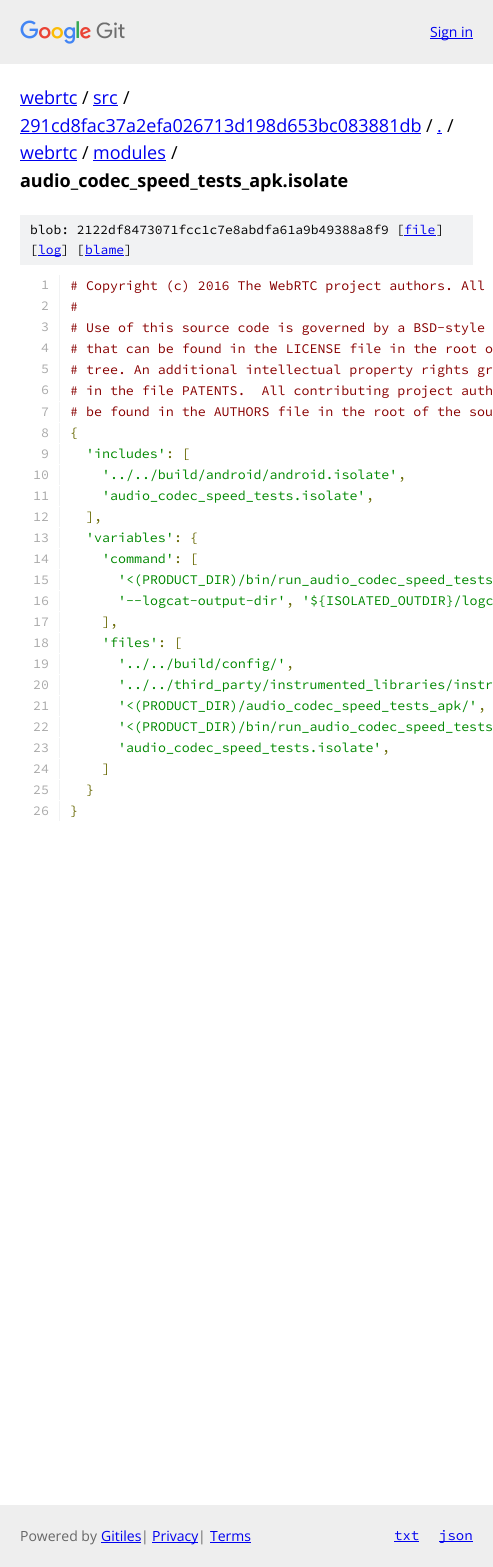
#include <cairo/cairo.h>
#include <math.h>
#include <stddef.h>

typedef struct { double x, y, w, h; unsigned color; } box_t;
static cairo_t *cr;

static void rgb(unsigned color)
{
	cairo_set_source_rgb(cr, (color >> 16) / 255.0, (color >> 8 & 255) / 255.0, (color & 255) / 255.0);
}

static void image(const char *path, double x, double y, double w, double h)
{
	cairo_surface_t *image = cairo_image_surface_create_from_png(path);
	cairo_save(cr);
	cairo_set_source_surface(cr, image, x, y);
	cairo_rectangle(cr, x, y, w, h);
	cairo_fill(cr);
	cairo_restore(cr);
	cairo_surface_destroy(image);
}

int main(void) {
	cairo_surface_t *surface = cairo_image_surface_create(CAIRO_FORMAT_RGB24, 493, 1567);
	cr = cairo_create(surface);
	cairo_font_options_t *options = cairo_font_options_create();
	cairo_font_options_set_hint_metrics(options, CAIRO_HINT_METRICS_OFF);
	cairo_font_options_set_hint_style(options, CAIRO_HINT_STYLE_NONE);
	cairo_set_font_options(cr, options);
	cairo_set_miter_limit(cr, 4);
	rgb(0xffffff);
	cairo_paint(cr);
	rgb(0xeeeeee);
	cairo_rectangle(cr, 0, 0, 493, 64);
	cairo_fill(cr);
	image("img/1.png", 20, 20, 105, 24);
	{
		static const box_t items[] = {
			{430, 38, 43, 1, 0x0000ee},
			{20, 105, 57, 1, 0x0000ee},
			{93, 105, 25, 1, 0x0000ee},
			{20, 133, 401, 1, 0x0000ee},
			{437, 133, 5, 1, 0x0000ee},
			{20, 160, 57, 1, 0x0000ee},
			{93, 160, 73, 1, 0x0000ee},
			{20, 215, 453, 50, 0xf1f2f3},
			{404, 235, 32, 1, 0x0000ee},
			{38, 255, 23, 1, 0x0000ee},
			{85, 255, 39, 1, 0x0000ee},
			{59, 275, 1, 126, 0xf1f2f3},
			{59, 402, 1, 20, 0xf1f2f3},
			{59, 423, 1, 20, 0xf1f2f3},
			{59, 444, 1, 20, 0xf1f2f3},
			{59, 465, 1, 20, 0xf1f2f3},
			{59, 486, 1, 20, 0xf1f2f3},
			{59, 507, 1, 20, 0xf1f2f3},
			{59, 528, 1, 20, 0xf1f2f3},
			{59, 549, 1, 20, 0xf1f2f3},
			{59, 570, 1, 20, 0xf1f2f3},
			{59, 591, 1, 20, 0xf1f2f3},
			{59, 612, 1, 20, 0xf1f2f3},
			{59, 633, 1, 20, 0xf1f2f3},
			{59, 654, 1, 20, 0xf1f2f3},
			{59, 675, 1, 20, 0xf1f2f3},
			{59, 696, 1, 20, 0xf1f2f3},
			{59, 717, 1, 20, 0xf1f2f3},
			{59, 738, 1, 20, 0xf1f2f3},
			{59, 759, 1, 20, 0xf1f2f3},
			{59, 780, 1, 20, 0xf1f2f3},
			{59, 801, 1, 20, 0xf1f2f3},
			{0, 1505, 493, 62, 0xeeeeee},
			{101, 1542, 40, 1, 0x0000ee},
			{152, 1542, 46, 1, 0x0000ee},
			{210, 1542, 41, 1, 0x0000ee},
			{394, 1541, 25, 1, 0x0000ee},
			{439, 1541, 34, 1, 0x0000ee},
		};
		for (size_t i = 0; i < sizeof items / sizeof *items; i++) {
			rgb(items[i].color);
			cairo_rectangle(cr, items[i].x, items[i].y, items[i].w, items[i].h);
			cairo_fill(cr);
		}
	}
	cairo_select_font_face(cr, "Open Sans", CAIRO_FONT_SLANT_NORMAL, CAIRO_FONT_WEIGHT_NORMAL);
	cairo_set_font_size(cr, 14);
	cairo_move_to(cr, 430, 37);
	cairo_show_text(cr, "Sign in");
	cairo_set_font_size(cr, 18);
	cairo_move_to(cr, 20, 104);
	cairo_show_text(cr, "webrtc");
	rgb(0x000000);
	cairo_move_to(cr, 82, 104);
	cairo_show_text(cr, "/");
	rgb(0x0000ee);
	cairo_move_to(cr, 93, 104);
	cairo_show_text(cr, "src");
	rgb(0x000000);
	cairo_move_to(cr, 123, 104);
	cairo_show_text(cr, "/");
	rgb(0x0000ee);
	cairo_move_to(cr, 20, 132);
	cairo_show_text(cr, "291cd8fac37a2efa026713d198d653bc083881db");
	rgb(0x000000);
	cairo_move_to(cr, 426, 132);
	cairo_show_text(cr, "/");
	rgb(0x0000ee);
	cairo_move_to(cr, 437, 132);
	cairo_show_text(cr, ".");
	rgb(0x000000);
	cairo_move_to(cr, 447, 132);
	cairo_show_text(cr, "/");
	rgb(0x0000ee);
	cairo_move_to(cr, 20, 159);
	cairo_show_text(cr, "webrtc");
	rgb(0x000000);
	cairo_move_to(cr, 82, 159);
	cairo_show_text(cr, "/");
	rgb(0x0000ee);
	cairo_move_to(cr, 93, 159);
	cairo_show_text(cr, "modules");
	rgb(0x000000);
	cairo_move_to(cr, 171, 159);
	cairo_show_text(cr, "/");
	cairo_select_font_face(cr, "Open Sans", CAIRO_FONT_SLANT_NORMAL, CAIRO_FONT_WEIGHT_BOLD);
	cairo_move_to(cr, 20, 187);
	cairo_show_text(cr, "audio_codec_speed_tests_apk.isolate");
	cairo_select_font_face(cr, "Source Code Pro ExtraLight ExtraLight", CAIRO_FONT_SLANT_NORMAL, CAIRO_FONT_WEIGHT_NORMAL);
	cairo_set_font_size(cr, 13);
	cairo_move_to(cr, 30, 234);
	cairo_show_text(cr, "blob: 2122df8473071fcc1c7e8abdfa61a9b49388a8f9 [");
	rgb(0x0000ee);
	cairo_move_to(cr, 404, 234);
	cairo_show_text(cr, "file");
	rgb(0x000000);
	cairo_move_to(cr, 436, 234);
	cairo_show_text(cr, "]");
	cairo_move_to(cr, 30, 254);
	cairo_show_text(cr, "[");
	rgb(0x0000ee);
	cairo_move_to(cr, 38, 254);
	cairo_show_text(cr, "log");
	rgb(0x000000);
	cairo_move_to(cr, 61, 254);
	cairo_show_text(cr, "] [");
	rgb(0x0000ee);
	cairo_move_to(cr, 85, 254);
	cairo_show_text(cr, "blame");
	rgb(0x000000);
	cairo_move_to(cr, 124, 254);
	cairo_show_text(cr, "]");
	cairo_set_font_size(cr, 13.3);
	rgb(0xaaaaaa);
	cairo_move_to(cr, 41, 289);
	cairo_show_text(cr, "1");
	rgb(0x880000);
	cairo_move_to(cr, 70, 290);
	cairo_show_text(cr, "# Copyright (c) 2016 The WebRTC project authors. All");
	rgb(0xaaaaaa);
	cairo_move_to(cr, 41, 310);
	cairo_show_text(cr, "2");
	rgb(0x880000);
	cairo_move_to(cr, 70, 311);
	cairo_show_text(cr, "#");
	rgb(0xaaaaaa);
	cairo_move_to(cr, 41, 331);
	cairo_show_text(cr, "3");
	rgb(0x880000);
	cairo_move_to(cr, 70, 332);
	cairo_show_text(cr, "# Use of this source code is governed by a BSD-style");
	rgb(0xaaaaaa);
	cairo_move_to(cr, 41, 352);
	cairo_show_text(cr, "4");
	rgb(0x880000);
	cairo_move_to(cr, 70, 353);
	cairo_show_text(cr, "# that can be found in the LICENSE file in the root o");
	rgb(0xaaaaaa);
	cairo_move_to(cr, 41, 373);
	cairo_show_text(cr, "5");
	rgb(0x880000);
	cairo_move_to(cr, 70, 374);
	cairo_show_text(cr, "# tree. An additional intellectual property rights gr");
	rgb(0xaaaaaa);
	cairo_move_to(cr, 41, 394);
	cairo_show_text(cr, "6");
	rgb(0x880000);
	cairo_move_to(cr, 70, 395);
	cairo_show_text(cr, "# in the file PATENTS.  All contributing project auth");
	rgb(0xaaaaaa);
	cairo_move_to(cr, 41, 416);
	cairo_show_text(cr, "7");
	rgb(0x880000);
	cairo_move_to(cr, 70, 416);
	cairo_show_text(cr, "# be found in the AUTHORS file in the root of the sou");
	rgb(0xaaaaaa);
	cairo_move_to(cr, 41, 437);
	cairo_show_text(cr, "8");
	rgb(0x666600);
	cairo_move_to(cr, 70, 437);
	cairo_show_text(cr, "{");
	rgb(0xaaaaaa);
	cairo_move_to(cr, 41, 458);
	cairo_show_text(cr, "9");
	rgb(0x008800);
	cairo_move_to(cr, 86, 458);
	cairo_show_text(cr, "'includes'");
	rgb(0x666600);
	cairo_move_to(cr, 166, 458);
	cairo_show_text(cr, ": [");
	rgb(0xaaaaaa);
	cairo_move_to(cr, 33, 479);
	cairo_show_text(cr, "10");
	rgb(0x008800);
	cairo_move_to(cr, 102, 479);
	cairo_show_text(cr, "'../../build/android/android.isolate'");
	rgb(0x666600);
	cairo_move_to(cr, 398, 479);
	cairo_show_text(cr, ",");
	rgb(0xaaaaaa);
	cairo_move_to(cr, 33, 500);
	cairo_show_text(cr, "11");
	rgb(0x008800);
	cairo_move_to(cr, 102, 500);
	cairo_show_text(cr, "'audio_codec_speed_tests.isolate'");
	rgb(0x666600);
	cairo_move_to(cr, 366, 500);
	cairo_show_text(cr, ",");
	rgb(0xaaaaaa);
	cairo_move_to(cr, 33, 521);
	cairo_show_text(cr, "12");
	rgb(0x666600);
	cairo_move_to(cr, 86, 521);
	cairo_show_text(cr, "],");
	rgb(0xaaaaaa);
	cairo_move_to(cr, 33, 542);
	cairo_show_text(cr, "13");
	rgb(0x008800);
	cairo_move_to(cr, 86, 542);
	cairo_show_text(cr, "'variables'");
	rgb(0x666600);
	cairo_move_to(cr, 174, 542);
	cairo_show_text(cr, ": {");
	rgb(0xaaaaaa);
	cairo_move_to(cr, 33, 563);
	cairo_show_text(cr, "14");
	rgb(0x008800);
	cairo_move_to(cr, 102, 563);
	cairo_show_text(cr, "'command'");
	rgb(0x666600);
	cairo_move_to(cr, 174, 563);
	cairo_show_text(cr, ": [");
	rgb(0xaaaaaa);
	cairo_move_to(cr, 33, 584);
	cairo_show_text(cr, "15");
	rgb(0x008800);
	cairo_move_to(cr, 118, 584);
	cairo_show_text(cr, "'<(PRODUCT_DIR)/bin/run_audio_codec_speed_tests");
	rgb(0xaaaaaa);
	cairo_move_to(cr, 33, 605);
	cairo_show_text(cr, "16");
	rgb(0x008800);
	cairo_move_to(cr, 118, 605);
	cairo_show_text(cr, "'--logcat-output-dir'");
	rgb(0x666600);
	cairo_move_to(cr, 286, 605);
	cairo_show_text(cr, ",");
	rgb(0x008800);
	cairo_move_to(cr, 302, 605);
	cairo_show_text(cr, "'${ISOLATED_OUTDIR}/logc");
	rgb(0xaaaaaa);
	cairo_move_to(cr, 33, 626);
	cairo_show_text(cr, "17");
	rgb(0x666600);
	cairo_move_to(cr, 102, 626);
	cairo_show_text(cr, "],");
	rgb(0xaaaaaa);
	cairo_move_to(cr, 33, 647);
	cairo_show_text(cr, "18");
	rgb(0x008800);
	cairo_move_to(cr, 102, 647);
	cairo_show_text(cr, "'files'");
	rgb(0x666600);
	cairo_move_to(cr, 158, 647);
	cairo_show_text(cr, ": [");
	rgb(0xaaaaaa);
	cairo_move_to(cr, 33, 668);
	cairo_show_text(cr, "19");
	rgb(0x008800);
	cairo_move_to(cr, 118, 668);
	cairo_show_text(cr, "'../../build/config/'");
	rgb(0x666600);
	cairo_move_to(cr, 286, 668);
	cairo_show_text(cr, ",");
	rgb(0xaaaaaa);
	cairo_move_to(cr, 33, 689);
	cairo_show_text(cr, "20");
	rgb(0x008800);
	cairo_move_to(cr, 118, 689);
	cairo_show_text(cr, "'../../third_party/instrumented_libraries/instr");
	rgb(0xaaaaaa);
	cairo_move_to(cr, 33, 710);
	cairo_show_text(cr, "21");
	rgb(0x008800);
	cairo_move_to(cr, 118, 710);
	cairo_show_text(cr, "'<(PRODUCT_DIR)/audio_codec_speed_tests_apk/'");
	rgb(0x666600);
	cairo_move_to(cr, 478, 710);
	cairo_show_text(cr, ",");
	rgb(0xaaaaaa);
	cairo_move_to(cr, 33, 731);
	cairo_show_text(cr, "22");
	rgb(0x008800);
	cairo_move_to(cr, 118, 731);
	cairo_show_text(cr, "'<(PRODUCT_DIR)/bin/run_audio_codec_speed_tests");
	rgb(0xaaaaaa);
	cairo_move_to(cr, 33, 752);
	cairo_show_text(cr, "23");
	rgb(0x008800);
	cairo_move_to(cr, 118, 752);
	cairo_show_text(cr, "'audio_codec_speed_tests.isolate'");
	rgb(0x666600);
	cairo_move_to(cr, 382, 752);
	cairo_show_text(cr, ",");
	rgb(0xaaaaaa);
	cairo_move_to(cr, 33, 773);
	cairo_show_text(cr, "24");
	rgb(0x666600);
	cairo_move_to(cr, 102, 773);
	cairo_show_text(cr, "]");
	rgb(0xaaaaaa);
	cairo_move_to(cr, 33, 794);
	cairo_show_text(cr, "25");
	rgb(0x666600);
	cairo_move_to(cr, 86, 794);
	cairo_show_text(cr, "}");
	rgb(0xaaaaaa);
	cairo_move_to(cr, 33, 815);
	cairo_show_text(cr, "26");
	rgb(0x666600);
	cairo_move_to(cr, 70, 815);
	cairo_show_text(cr, "}");
	cairo_select_font_face(cr, "Open Sans", CAIRO_FONT_SLANT_NORMAL, CAIRO_FONT_WEIGHT_NORMAL);
	cairo_set_font_size(cr, 14);
	rgb(0x666666);
	cairo_move_to(cr, 20, 1541);
	cairo_show_text(cr, "Powered by");
	rgb(0x0000ee);
	cairo_move_to(cr, 101, 1541);
	cairo_show_text(cr, "Gitiles");
	rgb(0x666666);
	cairo_move_to(cr, 141, 1541);
	cairo_show_text(cr, "|");
	rgb(0x0000ee);
	cairo_move_to(cr, 152, 1541);
	cairo_show_text(cr, "Privacy");
	rgb(0x666666);
	cairo_move_to(cr, 198, 1541);
	cairo_show_text(cr, "|");
	rgb(0x0000ee);
	cairo_move_to(cr, 210, 1541);
	cairo_show_text(cr, "Terms");
	cairo_select_font_face(cr, "Source Code Pro ExtraLight ExtraLight", CAIRO_FONT_SLANT_NORMAL, CAIRO_FONT_WEIGHT_NORMAL);
	cairo_move_to(cr, 394, 1540);
	cairo_show_text(cr, "txt");
	cairo_move_to(cr, 439, 1540);
	cairo_show_text(cr, "json");
	cairo_surface_write_to_png(surface, "page.png");
	cairo_font_options_destroy(options);
	cairo_destroy(cr);
	cairo_surface_destroy(surface);
	return 0;
}
